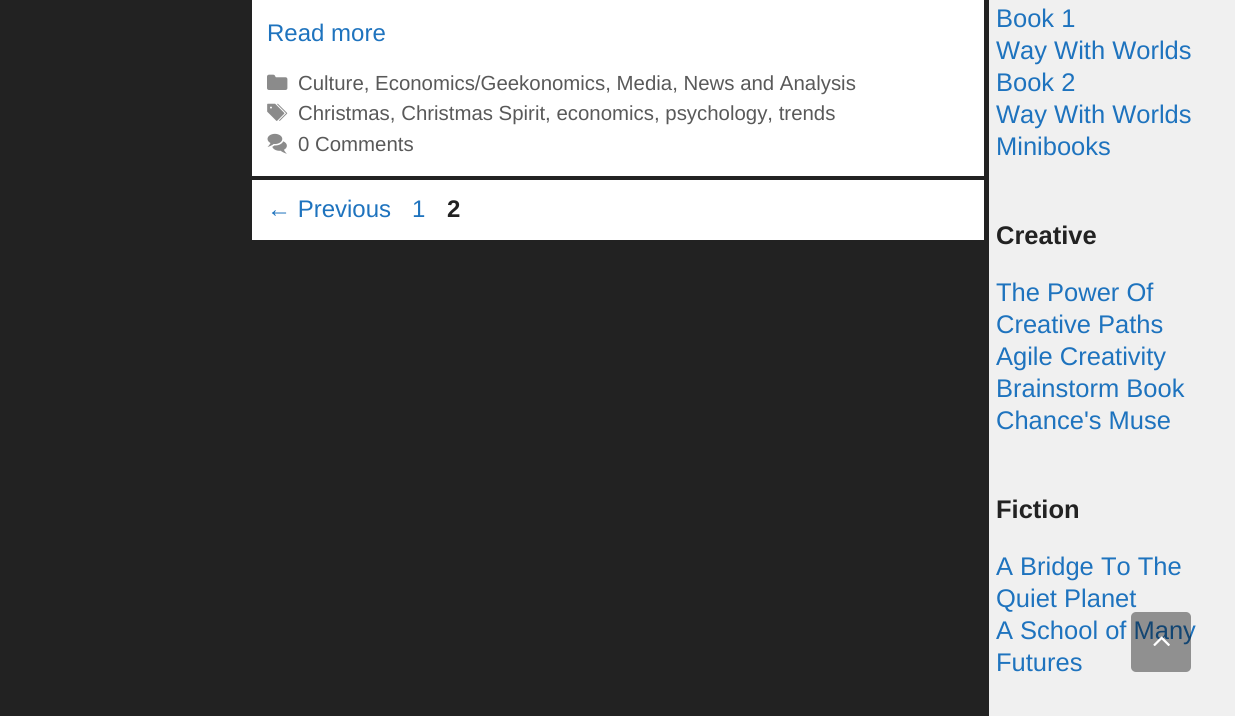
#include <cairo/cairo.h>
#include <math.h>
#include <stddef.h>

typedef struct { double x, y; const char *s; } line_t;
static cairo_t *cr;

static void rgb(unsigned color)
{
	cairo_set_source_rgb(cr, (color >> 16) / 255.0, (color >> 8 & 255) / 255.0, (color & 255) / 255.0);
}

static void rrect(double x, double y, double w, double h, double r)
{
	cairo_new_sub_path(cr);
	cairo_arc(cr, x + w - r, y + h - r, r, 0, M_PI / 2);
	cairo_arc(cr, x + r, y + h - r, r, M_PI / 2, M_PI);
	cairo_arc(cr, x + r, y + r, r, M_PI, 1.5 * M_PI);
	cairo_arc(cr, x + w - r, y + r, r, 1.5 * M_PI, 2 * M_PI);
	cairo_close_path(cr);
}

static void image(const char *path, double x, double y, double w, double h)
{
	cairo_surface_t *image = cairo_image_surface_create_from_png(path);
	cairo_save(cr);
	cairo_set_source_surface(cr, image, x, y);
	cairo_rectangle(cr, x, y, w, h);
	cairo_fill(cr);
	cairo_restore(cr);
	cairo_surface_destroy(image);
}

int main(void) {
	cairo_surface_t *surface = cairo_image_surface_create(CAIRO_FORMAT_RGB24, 1235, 716);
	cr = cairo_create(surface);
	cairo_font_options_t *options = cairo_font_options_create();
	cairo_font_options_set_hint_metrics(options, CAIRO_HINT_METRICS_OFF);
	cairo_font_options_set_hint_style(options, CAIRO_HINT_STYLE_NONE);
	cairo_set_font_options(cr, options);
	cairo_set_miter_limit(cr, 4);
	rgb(0x222222);
	cairo_paint(cr);
	rgb(0xffffff);
	cairo_rectangle(cr, 252, 0, 732, 176);
	cairo_fill(cr);
	image("img/1.png", 267, 74, 21, 16);
	image("img/2.png", 267, 103, 21, 18);
	image("img/3.png", 267, 133, 20, 21);
	cairo_rectangle(cr, 252, 180, 732, 60);
	cairo_fill(cr);
	rgb(0xf0f0f0);
	cairo_rectangle(cr, 989, 0, 246, 716);
	cairo_fill(cr);
	cairo_select_font_face(cr, "Liberation Sans", CAIRO_FONT_SLANT_NORMAL, CAIRO_FONT_WEIGHT_NORMAL);
	cairo_set_font_size(cr, 24);
	rgb(0x1e73be);
	cairo_move_to(cr, 267, 41);
	cairo_show_text(cr, "Read more");
	cairo_set_font_size(cr, 20.4);
	rgb(0x595959);
	{
		static const line_t items[] = {
			{298, 90, "Culture, Economics/Geekonomics, Media, News and Analysis"},
			{298, 120, "Christmas, Christmas Spirit, economics, psychology, trends"},
			{298, 151, "0 Comments"},
		};
		for (size_t i = 0; i < sizeof items / sizeof *items; i++) {
			cairo_move_to(cr, items[i].x, items[i].y);
			cairo_show_text(cr, items[i].s);
		}
	}
	cairo_set_font_size(cr, 24);
	rgb(0x1e73be);
	cairo_move_to(cr, 267, 217);
	cairo_show_text(cr, "← Previous");
	cairo_move_to(cr, 412, 217);
	cairo_show_text(cr, "1");
	cairo_select_font_face(cr, "Liberation Sans", CAIRO_FONT_SLANT_NORMAL, CAIRO_FONT_WEIGHT_BOLD);
	rgb(0x222222);
	cairo_move_to(cr, 447, 217);
	cairo_show_text(cr, "2");
	cairo_select_font_face(cr, "Liberation Sans", CAIRO_FONT_SLANT_NORMAL, CAIRO_FONT_WEIGHT_NORMAL);
	cairo_set_font_size(cr, 25.5);
	rgb(0x1e73be);
	{
		static const line_t items[] = {
			{996, 27, "Book 1"},
			{996, 59, "Way With Worlds"},
			{996, 91, "Book 2"},
			{996, 123, "Way With Worlds"},
			{996, 155, "Minibooks"},
		};
		for (size_t i = 0; i < sizeof items / sizeof *items; i++) {
			cairo_move_to(cr, items[i].x, items[i].y);
			cairo_show_text(cr, items[i].s);
		}
	}
	cairo_select_font_face(cr, "Liberation Sans", CAIRO_FONT_SLANT_NORMAL, CAIRO_FONT_WEIGHT_BOLD);
	rgb(0x222222);
	cairo_move_to(cr, 996, 244);
	cairo_show_text(cr, "Creative");
	cairo_select_font_face(cr, "Liberation Sans", CAIRO_FONT_SLANT_NORMAL, CAIRO_FONT_WEIGHT_NORMAL);
	rgb(0x1e73be);
	{
		static const line_t items[] = {
			{996, 301, "The Power Of"},
			{996, 333, "Creative Paths"},
			{996, 365, "Agile Creativity"},
			{996, 397, "Brainstorm Book"},
			{996, 429, "Chance's Muse"},
		};
		for (size_t i = 0; i < sizeof items / sizeof *items; i++) {
			cairo_move_to(cr, items[i].x, items[i].y);
			cairo_show_text(cr, items[i].s);
		}
	}
	cairo_select_font_face(cr, "Liberation Sans", CAIRO_FONT_SLANT_NORMAL, CAIRO_FONT_WEIGHT_BOLD);
	rgb(0x222222);
	cairo_move_to(cr, 996, 518);
	cairo_show_text(cr, "Fiction");
	cairo_select_font_face(cr, "Liberation Sans", CAIRO_FONT_SLANT_NORMAL, CAIRO_FONT_WEIGHT_NORMAL);
	rgb(0x1e73be);
	{
		static const line_t items[] = {
			{996, 575, "A Bridge To The"},
			{996, 607, "Quiet Planet"},
			{996, 639, "A School of Many"},
			{996, 671, "Futures"},
		};
		for (size_t i = 0; i < sizeof items / sizeof *items; i++) {
			cairo_move_to(cr, items[i].x, items[i].y);
			cairo_show_text(cr, items[i].s);
		}
	}
	cairo_set_source_rgba(cr, 0, 0, 0, 0.4);
	rrect(1131, 612, 60, 60, 5);
	cairo_fill(cr);
	image("img/4.png", 1153, 636, 17, 10);
	cairo_surface_write_to_png(surface, "page.png");
	cairo_font_options_destroy(options);
	cairo_destroy(cr);
	cairo_surface_destroy(surface);
	return 0;
}
